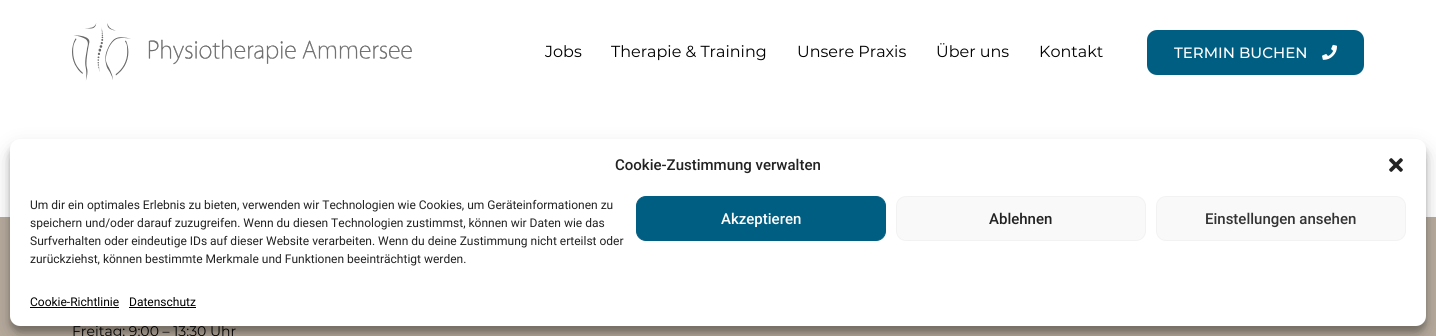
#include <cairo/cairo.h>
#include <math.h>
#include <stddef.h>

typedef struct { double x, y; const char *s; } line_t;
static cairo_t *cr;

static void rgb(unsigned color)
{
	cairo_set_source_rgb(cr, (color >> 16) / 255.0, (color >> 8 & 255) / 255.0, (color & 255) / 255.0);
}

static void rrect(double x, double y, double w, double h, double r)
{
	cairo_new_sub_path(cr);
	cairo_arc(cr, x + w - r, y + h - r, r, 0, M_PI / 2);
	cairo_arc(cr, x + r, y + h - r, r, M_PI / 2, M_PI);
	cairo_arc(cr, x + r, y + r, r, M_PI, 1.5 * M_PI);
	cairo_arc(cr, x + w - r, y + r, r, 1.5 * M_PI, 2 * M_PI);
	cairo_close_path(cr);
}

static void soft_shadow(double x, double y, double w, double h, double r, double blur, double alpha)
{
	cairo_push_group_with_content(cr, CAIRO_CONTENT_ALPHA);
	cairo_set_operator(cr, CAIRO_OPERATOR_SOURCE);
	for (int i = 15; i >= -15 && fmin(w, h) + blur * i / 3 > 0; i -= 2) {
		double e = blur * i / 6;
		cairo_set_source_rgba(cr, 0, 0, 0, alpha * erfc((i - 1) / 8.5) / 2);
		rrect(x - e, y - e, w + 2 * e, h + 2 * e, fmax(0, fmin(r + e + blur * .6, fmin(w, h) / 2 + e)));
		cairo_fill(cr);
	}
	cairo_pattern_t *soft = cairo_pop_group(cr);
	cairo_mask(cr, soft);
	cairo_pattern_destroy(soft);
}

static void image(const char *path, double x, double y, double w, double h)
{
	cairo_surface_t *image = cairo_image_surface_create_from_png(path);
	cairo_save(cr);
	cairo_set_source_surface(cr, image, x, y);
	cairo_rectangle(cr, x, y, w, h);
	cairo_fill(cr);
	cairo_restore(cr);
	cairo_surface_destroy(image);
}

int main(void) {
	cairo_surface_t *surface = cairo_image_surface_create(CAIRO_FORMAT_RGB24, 1436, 336);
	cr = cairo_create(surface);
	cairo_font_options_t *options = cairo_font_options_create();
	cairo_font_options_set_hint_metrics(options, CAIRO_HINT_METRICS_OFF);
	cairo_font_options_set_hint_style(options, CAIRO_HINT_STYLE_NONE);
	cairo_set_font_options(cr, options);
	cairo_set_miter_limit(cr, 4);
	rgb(0xffffff);
	cairo_paint(cr);
	image("img/1.png", 72, 23, 340, 58);
	rgb(0x005e82);
	rrect(1148.5, 31.5, 214, 42, 8.5);
	cairo_fill_preserve(cr);
	cairo_set_line_width(cr, 3);
	cairo_stroke(cr);
	image("img/2.png", 1322, 44, 15, 16);
	rgb(0xb7ab9d);
	cairo_rectangle(cr, 0, 217, 1436, 119);
	cairo_fill(cr);
	rgb(0x000000);
	soft_shadow(10, 145, 1416, 187, 10, 3, 0.23);
	soft_shadow(10, 149, 1416, 187, 10, 10, 0.19);
	cairo_select_font_face(cr, "Montserrat", CAIRO_FONT_SLANT_NORMAL, CAIRO_FONT_WEIGHT_NORMAL);
	cairo_set_font_size(cr, 16);
	rgb(0x000000);
	{
		static const line_t items[] = {
			{545, 57, "Jobs"},
			{611, 57, "Therapie & Training"},
			{797, 57, "Unsere Praxis"},
			{936, 57, "Über uns"},
			{1039, 57, "Kontakt"},
		};
		for (size_t i = 0; i < sizeof items / sizeof *items; i++) {
			cairo_move_to(cr, items[i].x, items[i].y);
			cairo_show_text(cr, items[i].s);
		}
	}
	cairo_select_font_face(cr, "Montserrat Medium", CAIRO_FONT_SLANT_NORMAL, CAIRO_FONT_WEIGHT_NORMAL);
	cairo_set_font_size(cr, 15);
	rgb(0xffffff);
	cairo_move_to(cr, 1174, 58);
	cairo_show_text(cr, "TERMIN BUCHEN");
	cairo_select_font_face(cr, "Montserrat", CAIRO_FONT_SLANT_NORMAL, CAIRO_FONT_WEIGHT_NORMAL);
	cairo_set_font_size(cr, 14);
	rgb(0x000000);
	cairo_move_to(cr, 72, 336);
	cairo_show_text(cr, "Freitag: 9:00 – 13:30 Uhr");
	rgb(0xffffff);
	rrect(10, 139, 1416, 187, 10);
	cairo_fill(cr);
	cairo_select_font_face(cr, "Roboto", CAIRO_FONT_SLANT_NORMAL, CAIRO_FONT_WEIGHT_NORMAL);
	cairo_set_font_size(cr, 12);
	rgb(0x222222);
	{
		static const line_t items[] = {
			{30, 263, "zurückziehst, können bestimmte Merkmale und Funktionen beeinträchtigt werden."},
			{30, 245, "Surfverhalten oder eindeutige IDs auf dieser Website verarbeiten. Wenn du deine Zustimmung nicht erteilst oder"},
			{30, 227, "speichern und/oder darauf zuzugreifen. Wenn du diesen Technologien zustimmst, können wir Daten wie das"},
			{30, 209, "Um dir ein optimales Erlebnis zu bieten, verwenden wir Technologien wie Cookies, um Geräteinformationen zu"},
		};
		for (size_t i = 0; i < sizeof items / sizeof *items; i++) {
			cairo_move_to(cr, items[i].x, items[i].y);
			cairo_show_text(cr, items[i].s);
		}
	}
	image("img/3.png", 1389, 158, 14, 14);
	rgb(0x000000);
	cairo_move_to(cr, 129, 306);
	cairo_show_text(cr, "Datenschutz");
	cairo_rectangle(cr, 129, 307, 67, 1);
	cairo_fill(cr);
	cairo_move_to(cr, 30, 306);
	cairo_show_text(cr, "Cookie-Richtlinie");
	cairo_rectangle(cr, 30, 307, 89, 1);
	cairo_fill(cr);
	rgb(0xf9f9f9);
	rrect(1156.5, 196.5, 249, 44, 9.5);
	cairo_fill_preserve(cr);
	rgb(0xf2f2f2);
	cairo_set_line_width(cr, 1);
	cairo_stroke(cr);
	cairo_select_font_face(cr, "Roboto Medium", CAIRO_FONT_SLANT_NORMAL, CAIRO_FONT_WEIGHT_NORMAL);
	cairo_set_font_size(cr, 15);
	rgb(0x333333);
	cairo_move_to(cr, 1205, 224);
	cairo_show_text(cr, "Einstellungen ansehen");
	rgb(0xf9f9f9);
	rrect(896.5, 196.5, 249, 44, 9.5);
	cairo_fill_preserve(cr);
	rgb(0xf2f2f2);
	cairo_stroke(cr);
	rgb(0x222222);
	cairo_move_to(cr, 989, 224);
	cairo_show_text(cr, "Ablehnen");
	rgb(0x005e82);
	rrect(636.5, 196.5, 249, 44, 9.5);
	cairo_fill_preserve(cr);
	cairo_stroke(cr);
	rgb(0xffffff);
	cairo_move_to(cr, 721, 224);
	cairo_show_text(cr, "Akzeptieren");
	rgb(0x222222);
	cairo_move_to(cr, 615, 170);
	cairo_show_text(cr, "Cookie-Zustimmung verwalten");
	cairo_surface_write_to_png(surface, "page.png");
	cairo_font_options_destroy(options);
	cairo_destroy(cr);
	cairo_surface_destroy(surface);
	return 0;
}
